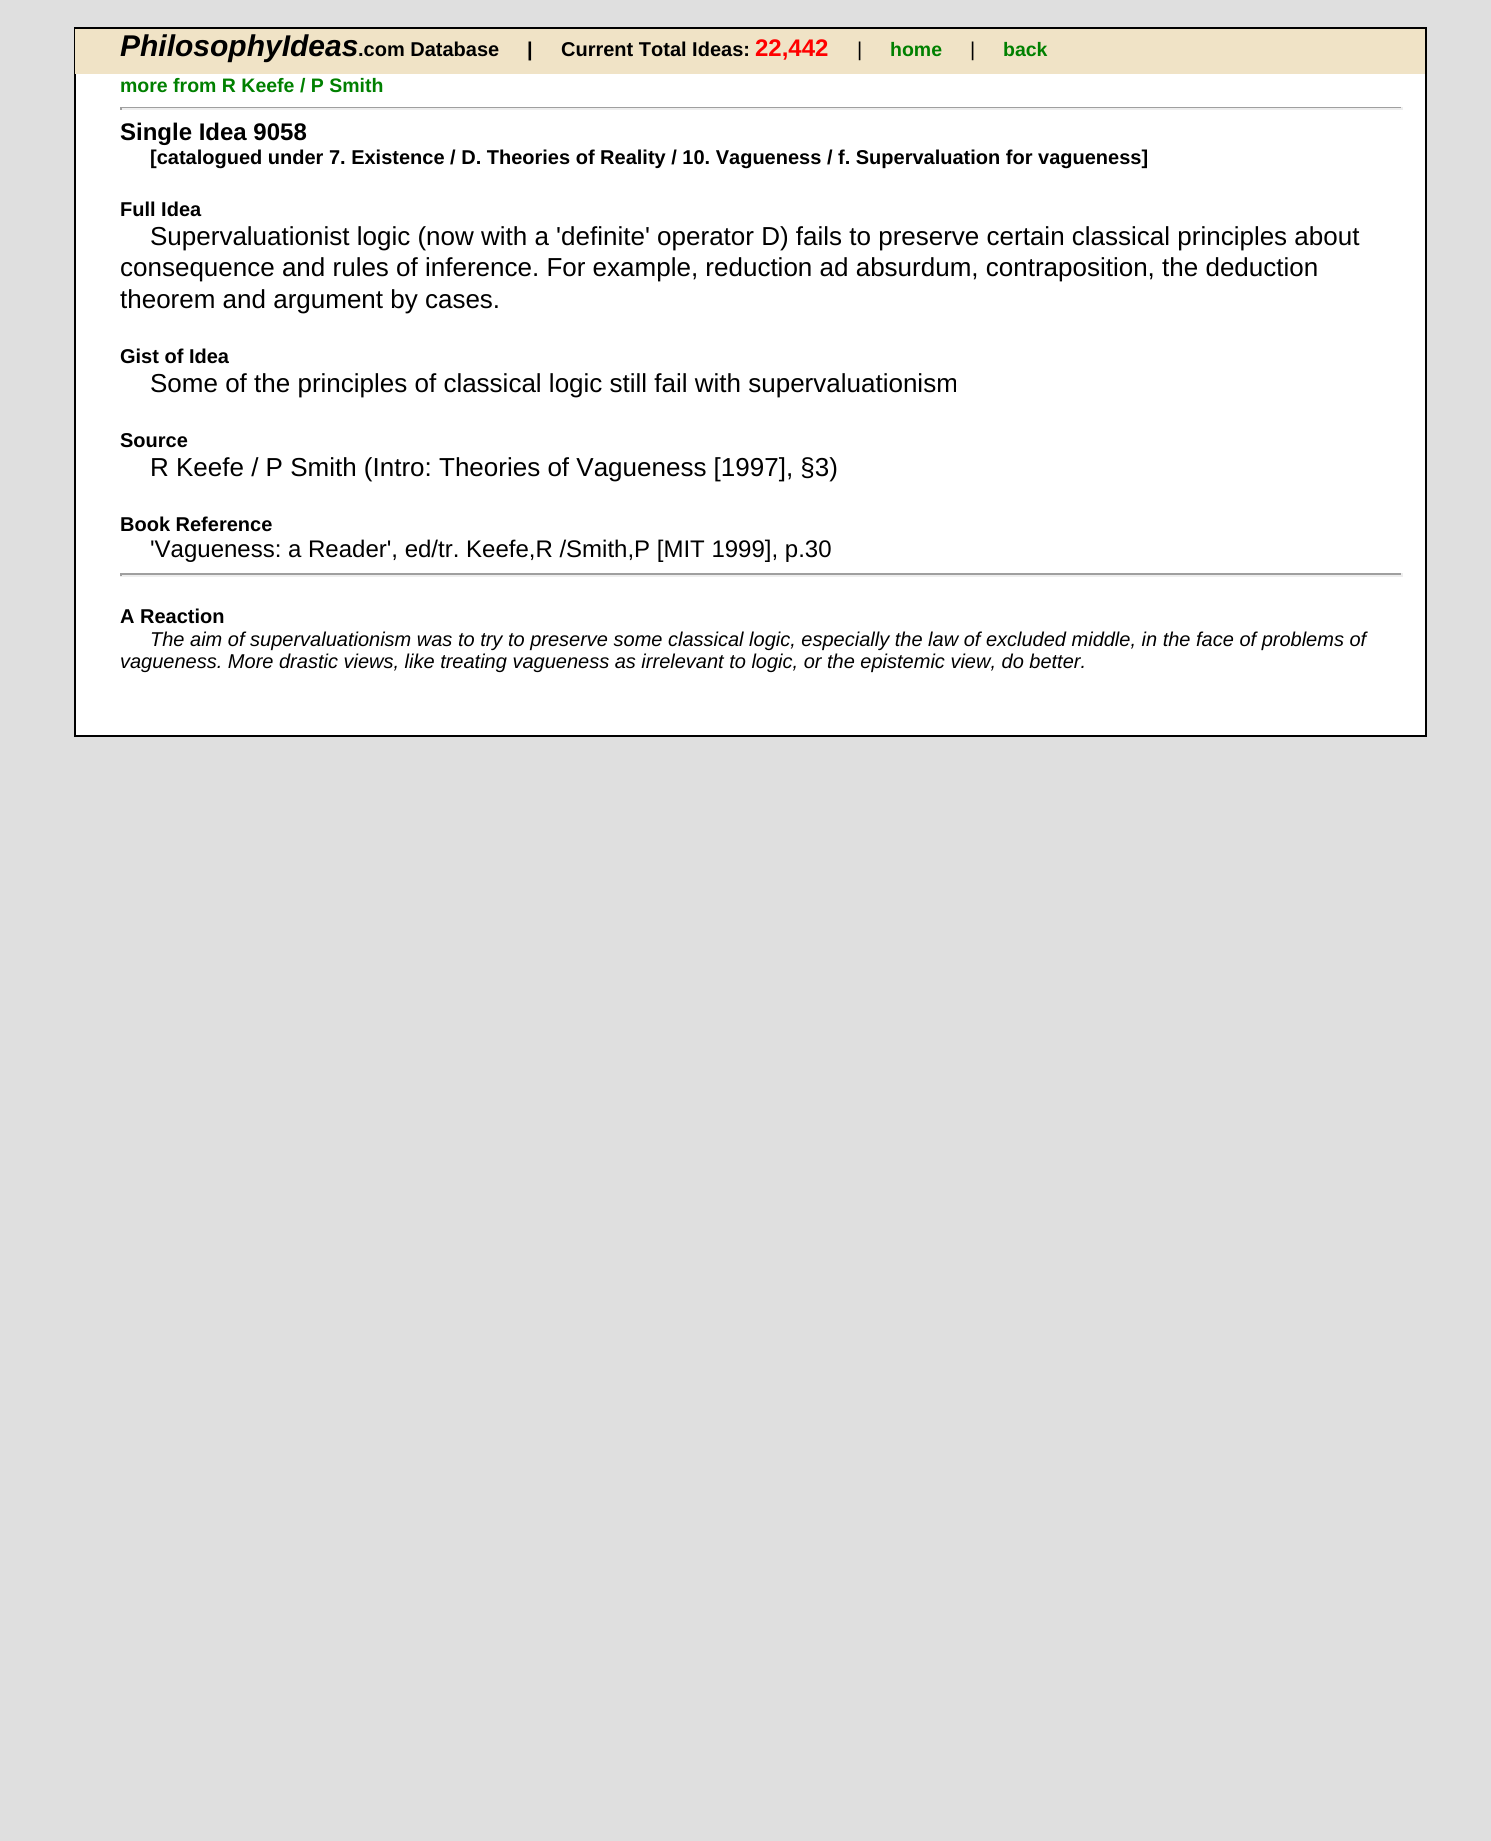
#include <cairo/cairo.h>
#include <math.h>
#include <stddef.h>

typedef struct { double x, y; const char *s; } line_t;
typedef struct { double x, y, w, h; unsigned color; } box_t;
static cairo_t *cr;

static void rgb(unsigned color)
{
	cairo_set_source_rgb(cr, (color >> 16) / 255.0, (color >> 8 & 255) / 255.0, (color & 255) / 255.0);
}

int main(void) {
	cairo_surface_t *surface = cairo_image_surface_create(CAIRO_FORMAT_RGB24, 1491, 1841);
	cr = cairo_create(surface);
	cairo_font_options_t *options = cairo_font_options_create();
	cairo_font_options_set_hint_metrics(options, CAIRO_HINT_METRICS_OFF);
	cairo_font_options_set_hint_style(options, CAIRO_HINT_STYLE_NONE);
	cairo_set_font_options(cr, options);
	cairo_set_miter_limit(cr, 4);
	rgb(0xdfdfdf);
	cairo_paint(cr);
	rgb(0xffffff);
	cairo_rectangle(cr, 76, 74, 1349, 661);
	cairo_fill(cr);
	cairo_rectangle(cr, 75, 28, 1351, 708);
	rgb(0x000000);
	cairo_stroke(cr);
	{
		static const box_t items[] = {
			{75, 29, 1350, 45, 0xf0e3c6},
			{120, 107, 1283, 1, 0x9f9f9f},
			{1401, 107, 2, 3, 0xeeeeee},
			{120, 108, 1283, 2, 0xeeeeee},
			{120, 107, 2, 3, 0x9f9f9f},
			{120, 573, 1283, 2, 0x9f9f9f},
			{1401, 573, 2, 3, 0xeeeeee},
			{120, 575, 1283, 2, 0xeeeeee},
			{120, 573, 2, 3, 0x9f9f9f},
		};
		for (size_t i = 0; i < sizeof items / sizeof *items; i++) {
			rgb(items[i].color);
			cairo_rectangle(cr, items[i].x, items[i].y, items[i].w, items[i].h);
			cairo_fill(cr);
		}
	}
	cairo_select_font_face(cr, "Liberation Sans", CAIRO_FONT_SLANT_ITALIC, CAIRO_FONT_WEIGHT_BOLD);
	cairo_set_font_size(cr, 30);
	rgb(0x000000);
	cairo_move_to(cr, 120, 56);
	cairo_show_text(cr, "PhilosophyIdeas");
	cairo_select_font_face(cr, "Liberation Sans", CAIRO_FONT_SLANT_NORMAL, CAIRO_FONT_WEIGHT_BOLD);
	cairo_set_font_size(cr, 20);
	{
		static const line_t items[] = {
			{358, 56, ".com Database"},
			{527, 56, "|"},
			{561, 56, "Current Total Ideas:"},
		};
		for (size_t i = 0; i < sizeof items / sizeof *items; i++) {
			cairo_move_to(cr, items[i].x, items[i].y);
			cairo_show_text(cr, items[i].s);
		}
	}
	cairo_set_font_size(cr, 24);
	rgb(0xff0000);
	cairo_move_to(cr, 755, 56);
	cairo_show_text(cr, "22,442");
	cairo_select_font_face(cr, "Liberation Sans", CAIRO_FONT_SLANT_NORMAL, CAIRO_FONT_WEIGHT_NORMAL);
	cairo_set_font_size(cr, 20);
	rgb(0x000000);
	cairo_move_to(cr, 857, 56);
	cairo_show_text(cr, "|");
	cairo_select_font_face(cr, "Liberation Sans", CAIRO_FONT_SLANT_NORMAL, CAIRO_FONT_WEIGHT_BOLD);
	cairo_set_font_size(cr, 19.5);
	rgb(0x008000);
	cairo_move_to(cr, 890, 56);
	cairo_show_text(cr, "home");
	cairo_select_font_face(cr, "Liberation Sans", CAIRO_FONT_SLANT_NORMAL, CAIRO_FONT_WEIGHT_NORMAL);
	cairo_set_font_size(cr, 20);
	rgb(0x000000);
	cairo_move_to(cr, 970, 56);
	cairo_show_text(cr, "|");
	cairo_select_font_face(cr, "Liberation Sans", CAIRO_FONT_SLANT_NORMAL, CAIRO_FONT_WEIGHT_BOLD);
	cairo_set_font_size(cr, 19.5);
	rgb(0x008000);
	cairo_move_to(cr, 1003, 56);
	cairo_show_text(cr, "back");
	cairo_move_to(cr, 120, 92);
	cairo_show_text(cr, "more from R Keefe / P Smith");
	cairo_set_font_size(cr, 24);
	rgb(0x000000);
	cairo_move_to(cr, 120, 140);
	cairo_show_text(cr, "Single Idea 9058");
	cairo_set_font_size(cr, 20);
	cairo_move_to(cr, 150, 164);
	cairo_show_text(cr, "[catalogued under 7. Existence / D. Theories of Reality / 10. Vagueness / f. Supervaluation for vagueness]");
	cairo_move_to(cr, 120, 216);
	cairo_show_text(cr, "Full Idea");
	cairo_select_font_face(cr, "Liberation Sans", CAIRO_FONT_SLANT_NORMAL, CAIRO_FONT_WEIGHT_NORMAL);
	cairo_set_font_size(cr, 26);
	{
		static const line_t items[] = {
			{150, 245, "Supervaluationist logic (now with a 'definite' operator D) fails to preserve certain classical principles about"},
			{120, 276, "consequence and rules of inference. For example, reduction ad absurdum, contraposition, the deduction"},
			{120, 308, "theorem and argument by cases."},
		};
		for (size_t i = 0; i < sizeof items / sizeof *items; i++) {
			cairo_move_to(cr, items[i].x, items[i].y);
			cairo_show_text(cr, items[i].s);
		}
	}
	cairo_select_font_face(cr, "Liberation Sans", CAIRO_FONT_SLANT_NORMAL, CAIRO_FONT_WEIGHT_BOLD);
	cairo_set_font_size(cr, 20);
	cairo_move_to(cr, 120, 363);
	cairo_show_text(cr, "Gist of Idea");
	cairo_select_font_face(cr, "Liberation Sans", CAIRO_FONT_SLANT_NORMAL, CAIRO_FONT_WEIGHT_NORMAL);
	cairo_set_font_size(cr, 26);
	cairo_move_to(cr, 150, 392);
	cairo_show_text(cr, "Some of the principles of classical logic still fail with supervaluationism");
	cairo_select_font_face(cr, "Liberation Sans", CAIRO_FONT_SLANT_NORMAL, CAIRO_FONT_WEIGHT_BOLD);
	cairo_set_font_size(cr, 20);
	cairo_move_to(cr, 120, 447);
	cairo_show_text(cr, "Source");
	cairo_select_font_face(cr, "Liberation Sans", CAIRO_FONT_SLANT_NORMAL, CAIRO_FONT_WEIGHT_NORMAL);
	cairo_set_font_size(cr, 26);
	cairo_move_to(cr, 150, 476);
	cairo_show_text(cr, "R Keefe / P Smith (Intro: Theories of Vagueness [1997], §3)");
	cairo_select_font_face(cr, "Liberation Sans", CAIRO_FONT_SLANT_NORMAL, CAIRO_FONT_WEIGHT_BOLD);
	cairo_set_font_size(cr, 20);
	cairo_move_to(cr, 120, 531);
	cairo_show_text(cr, "Book Reference");
	cairo_select_font_face(cr, "Liberation Sans", CAIRO_FONT_SLANT_NORMAL, CAIRO_FONT_WEIGHT_NORMAL);
	cairo_set_font_size(cr, 24);
	cairo_move_to(cr, 150, 557);
	cairo_show_text(cr, "'Vagueness: a Reader', ed/tr. Keefe,R /Smith,P [MIT 1999], p.30");
	cairo_select_font_face(cr, "Liberation Sans", CAIRO_FONT_SLANT_NORMAL, CAIRO_FONT_WEIGHT_BOLD);
	cairo_set_font_size(cr, 20);
	cairo_move_to(cr, 120, 623);
	cairo_show_text(cr, "A Reaction");
	cairo_select_font_face(cr, "Liberation Sans", CAIRO_FONT_SLANT_ITALIC, CAIRO_FONT_WEIGHT_NORMAL);
	cairo_move_to(cr, 150, 646);
	cairo_show_text(cr, "The aim of supervaluationism was to try to preserve some classical logic, especially the law of excluded middle, in the face of problems of");
	cairo_move_to(cr, 120, 668);
	cairo_show_text(cr, "vagueness. More drastic views, like treating vagueness as irrelevant to logic, or the epistemic view, do better.");
	cairo_surface_write_to_png(surface, "page.png");
	cairo_font_options_destroy(options);
	cairo_destroy(cr);
	cairo_surface_destroy(surface);
	return 0;
}
